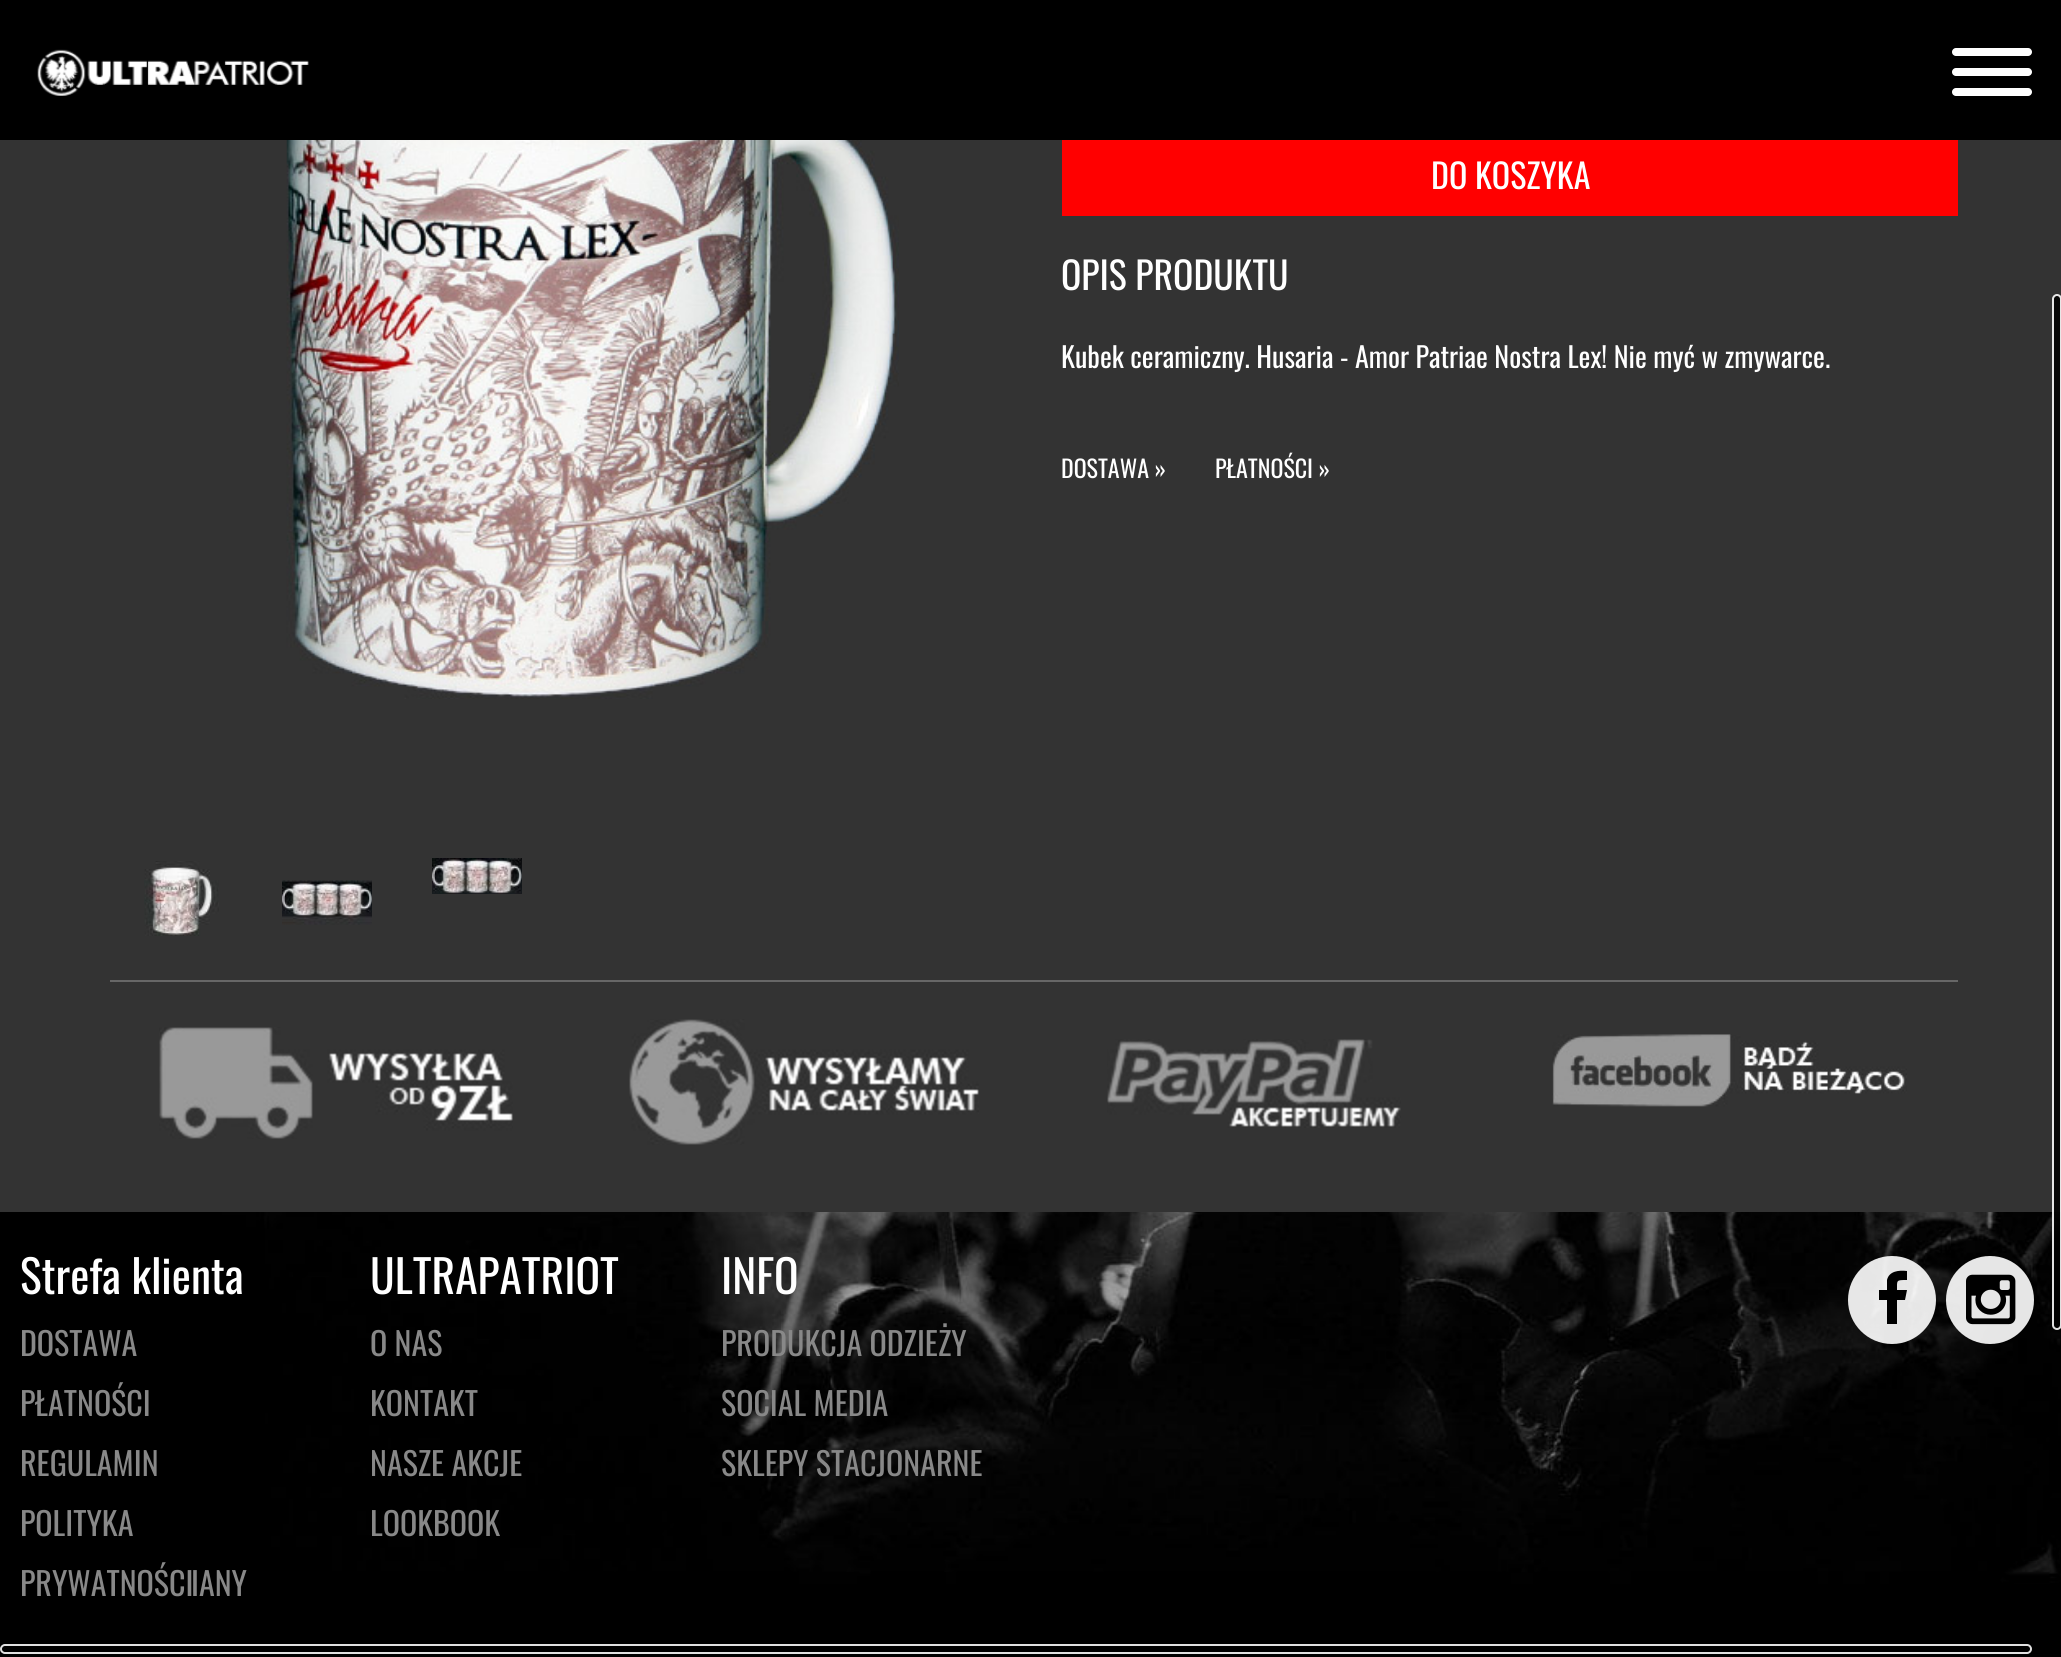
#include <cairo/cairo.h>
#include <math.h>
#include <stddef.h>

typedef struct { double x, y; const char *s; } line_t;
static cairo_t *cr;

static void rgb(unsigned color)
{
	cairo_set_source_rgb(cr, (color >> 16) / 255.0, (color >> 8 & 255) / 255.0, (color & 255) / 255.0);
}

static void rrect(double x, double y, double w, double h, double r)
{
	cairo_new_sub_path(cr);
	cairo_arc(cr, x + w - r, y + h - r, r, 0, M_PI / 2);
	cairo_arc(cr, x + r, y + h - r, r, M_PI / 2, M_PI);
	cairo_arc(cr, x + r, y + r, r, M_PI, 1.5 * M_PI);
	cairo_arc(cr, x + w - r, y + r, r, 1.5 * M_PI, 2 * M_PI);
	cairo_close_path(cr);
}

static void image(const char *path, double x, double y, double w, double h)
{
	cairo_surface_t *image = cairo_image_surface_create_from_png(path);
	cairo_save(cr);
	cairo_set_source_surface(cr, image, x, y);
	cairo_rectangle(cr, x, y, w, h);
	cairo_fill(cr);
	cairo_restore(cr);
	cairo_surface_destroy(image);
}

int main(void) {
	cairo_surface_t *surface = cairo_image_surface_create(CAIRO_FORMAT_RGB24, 2061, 1657);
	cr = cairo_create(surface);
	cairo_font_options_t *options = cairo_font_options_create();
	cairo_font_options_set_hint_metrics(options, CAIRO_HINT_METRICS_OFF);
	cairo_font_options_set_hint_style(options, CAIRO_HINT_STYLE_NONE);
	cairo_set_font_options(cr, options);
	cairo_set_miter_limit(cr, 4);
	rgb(0x333333);
	cairo_paint(cr);
	rgb(0x000000);
	cairo_rectangle(cr, 0, 0, 2061, 140);
	cairo_fill(cr);
	image("img/1.png", 37, 49, 272, 47);
	rgb(0xffffff);
	rrect(1952, 88, 80, 8, 4);
	cairo_fill(cr);
	rrect(1952, 48, 80, 8, 4);
	cairo_fill(cr);
	rrect(1952, 68, 80, 8, 4);
	cairo_fill(cr);
	image("img/2.png", 286, 140, 613, 559);
	image("img/3.png", 144, 861, 75, 75);
	image("img/4.png", 282, 880, 90, 45);
	image("img/5.png", 432, 858, 90, 36);
	rgb(0xff0000);
	cairo_rectangle(cr, 1062, 140, 896, 76);
	cairo_fill(cr);
	rgb(0x676767);
	cairo_rectangle(cr, 110, 980, 1848, 2);
	cairo_fill(cr);
	image("img/6.png", 159, 1027, 354, 112);
	image("img/7.png", 629, 1019, 350, 126);
	image("img/8.png", 1107, 1039, 294, 89);
	image("img/9.png", 1552, 1034, 355, 73);
	image("img/10.png", 0, 1212, 2061, 445);
	cairo_set_source_rgba(cr, 1, 1, 1, 0.9);
	cairo_arc(cr, 1892, 1300, 44, 0, 2 * M_PI);
	cairo_fill(cr);
	rgb(0x000000);
	cairo_new_path(cr);
	cairo_move_to(cr, 1907, 1271);
	cairo_line_to(cr, 1907, 1280);
	cairo_curve_to(cr, 1896, 1280, 1897, 1280, 1897, 1290);
	cairo_line_to(cr, 1907, 1290);
	cairo_line_to(cr, 1905, 1300);
	cairo_line_to(cr, 1897, 1300);
	cairo_line_to(cr, 1897, 1324);
	cairo_line_to(cr, 1887, 1324);
	cairo_line_to(cr, 1887, 1300);
	cairo_line_to(cr, 1879, 1300);
	cairo_line_to(cr, 1879, 1290);
	cairo_line_to(cr, 1887, 1290);
	cairo_line_to(cr, 1887, 1280);
	cairo_curve_to(cr, 1889, 1271, 1899, 1270, 1907, 1271);
	cairo_close_path(cr);
	cairo_fill(cr);
	cairo_set_source_rgba(cr, 1, 1, 1, 0.9);
	cairo_arc(cr, 1990, 1300, 44, 0, 2 * M_PI);
	cairo_fill(cr);
	image("img/11.png", 1966, 1274, 50, 51);
	cairo_set_source_rgba(cr, 0, 0, 0, 0.88);
	rrect(2054, 296, 6, 1032, 3);
	cairo_fill(cr);
	rrect(2053, 295, 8, 1034, 4);
	cairo_set_source_rgba(cr, 1, 1, 1, 0.88);
	cairo_stroke(cr);
	rrect(1, 1645, 2030, 8, 4);
	rgb(0xe0e0e0);
	cairo_stroke(cr);
	cairo_select_font_face(cr, "Oswald", CAIRO_FONT_SLANT_NORMAL, CAIRO_FONT_WEIGHT_NORMAL);
	cairo_set_font_size(cr, 34);
	rgb(0xffffff);
	cairo_move_to(cr, 1431, 189);
	cairo_show_text(cr, "DO KOSZYKA");
	cairo_set_font_size(cr, 37.75);
	cairo_move_to(cr, 1061, 290);
	cairo_show_text(cr, "OPIS PRODUKTU");
	cairo_set_font_size(cr, 28.15);
	cairo_move_to(cr, 1061, 368);
	cairo_show_text(cr, "Kubek ceramiczny. Husaria - Amor Patriae Nostra Lex! Nie myć w zmywarce.");
	cairo_set_font_size(cr, 24);
	cairo_move_to(cr, 1061, 478);
	cairo_show_text(cr, "DOSTAWA »");
	cairo_move_to(cr, 1215, 478);
	cairo_show_text(cr, "PŁATNOŚCI »");
	cairo_set_font_size(cr, 45.5);
	cairo_move_to(cr, 20, 1294);
	cairo_show_text(cr, "Strefa klienta");
	cairo_set_font_size(cr, 32);
	rgb(0x888888);
	{
		static const line_t items[] = {
			{20, 1356, "DOSTAWA"},
			{20, 1416, "PŁATNOŚCI"},
			{20, 1476, "REGULAMIN"},
			{20, 1536, "POLITYKA"},
			{20, 1596, "PRYWATNOŚCI"},
			{191, 1596, "IANY"},
		};
		for (size_t i = 0; i < sizeof items / sizeof *items; i++) {
			cairo_move_to(cr, items[i].x, items[i].y);
			cairo_show_text(cr, items[i].s);
		}
	}
	cairo_set_font_size(cr, 45.5);
	rgb(0xffffff);
	cairo_move_to(cr, 370, 1294);
	cairo_show_text(cr, "ULTRAPATRIOT");
	cairo_set_font_size(cr, 32);
	rgb(0x888888);
	{
		static const line_t items[] = {
			{370, 1356, "O NAS"},
			{370, 1416, "KONTAKT"},
			{370, 1476, "NASZE AKCJE"},
			{370, 1536, "LOOKBOOK"},
		};
		for (size_t i = 0; i < sizeof items / sizeof *items; i++) {
			cairo_move_to(cr, items[i].x, items[i].y);
			cairo_show_text(cr, items[i].s);
		}
	}
	cairo_set_font_size(cr, 45.5);
	rgb(0xffffff);
	cairo_move_to(cr, 721, 1294);
	cairo_show_text(cr, "INFO");
	cairo_set_font_size(cr, 32);
	rgb(0x888888);
	{
		static const line_t items[] = {
			{721, 1356, "PRODUKCJA ODZIEŻY"},
			{721, 1416, "SOCIAL MEDIA"},
			{721, 1476, "SKLEPY STACJONARNE"},
		};
		for (size_t i = 0; i < sizeof items / sizeof *items; i++) {
			cairo_move_to(cr, items[i].x, items[i].y);
			cairo_show_text(cr, items[i].s);
		}
	}
	cairo_surface_write_to_png(surface, "page.png");
	cairo_font_options_destroy(options);
	cairo_destroy(cr);
	cairo_surface_destroy(surface);
	return 0;
}
